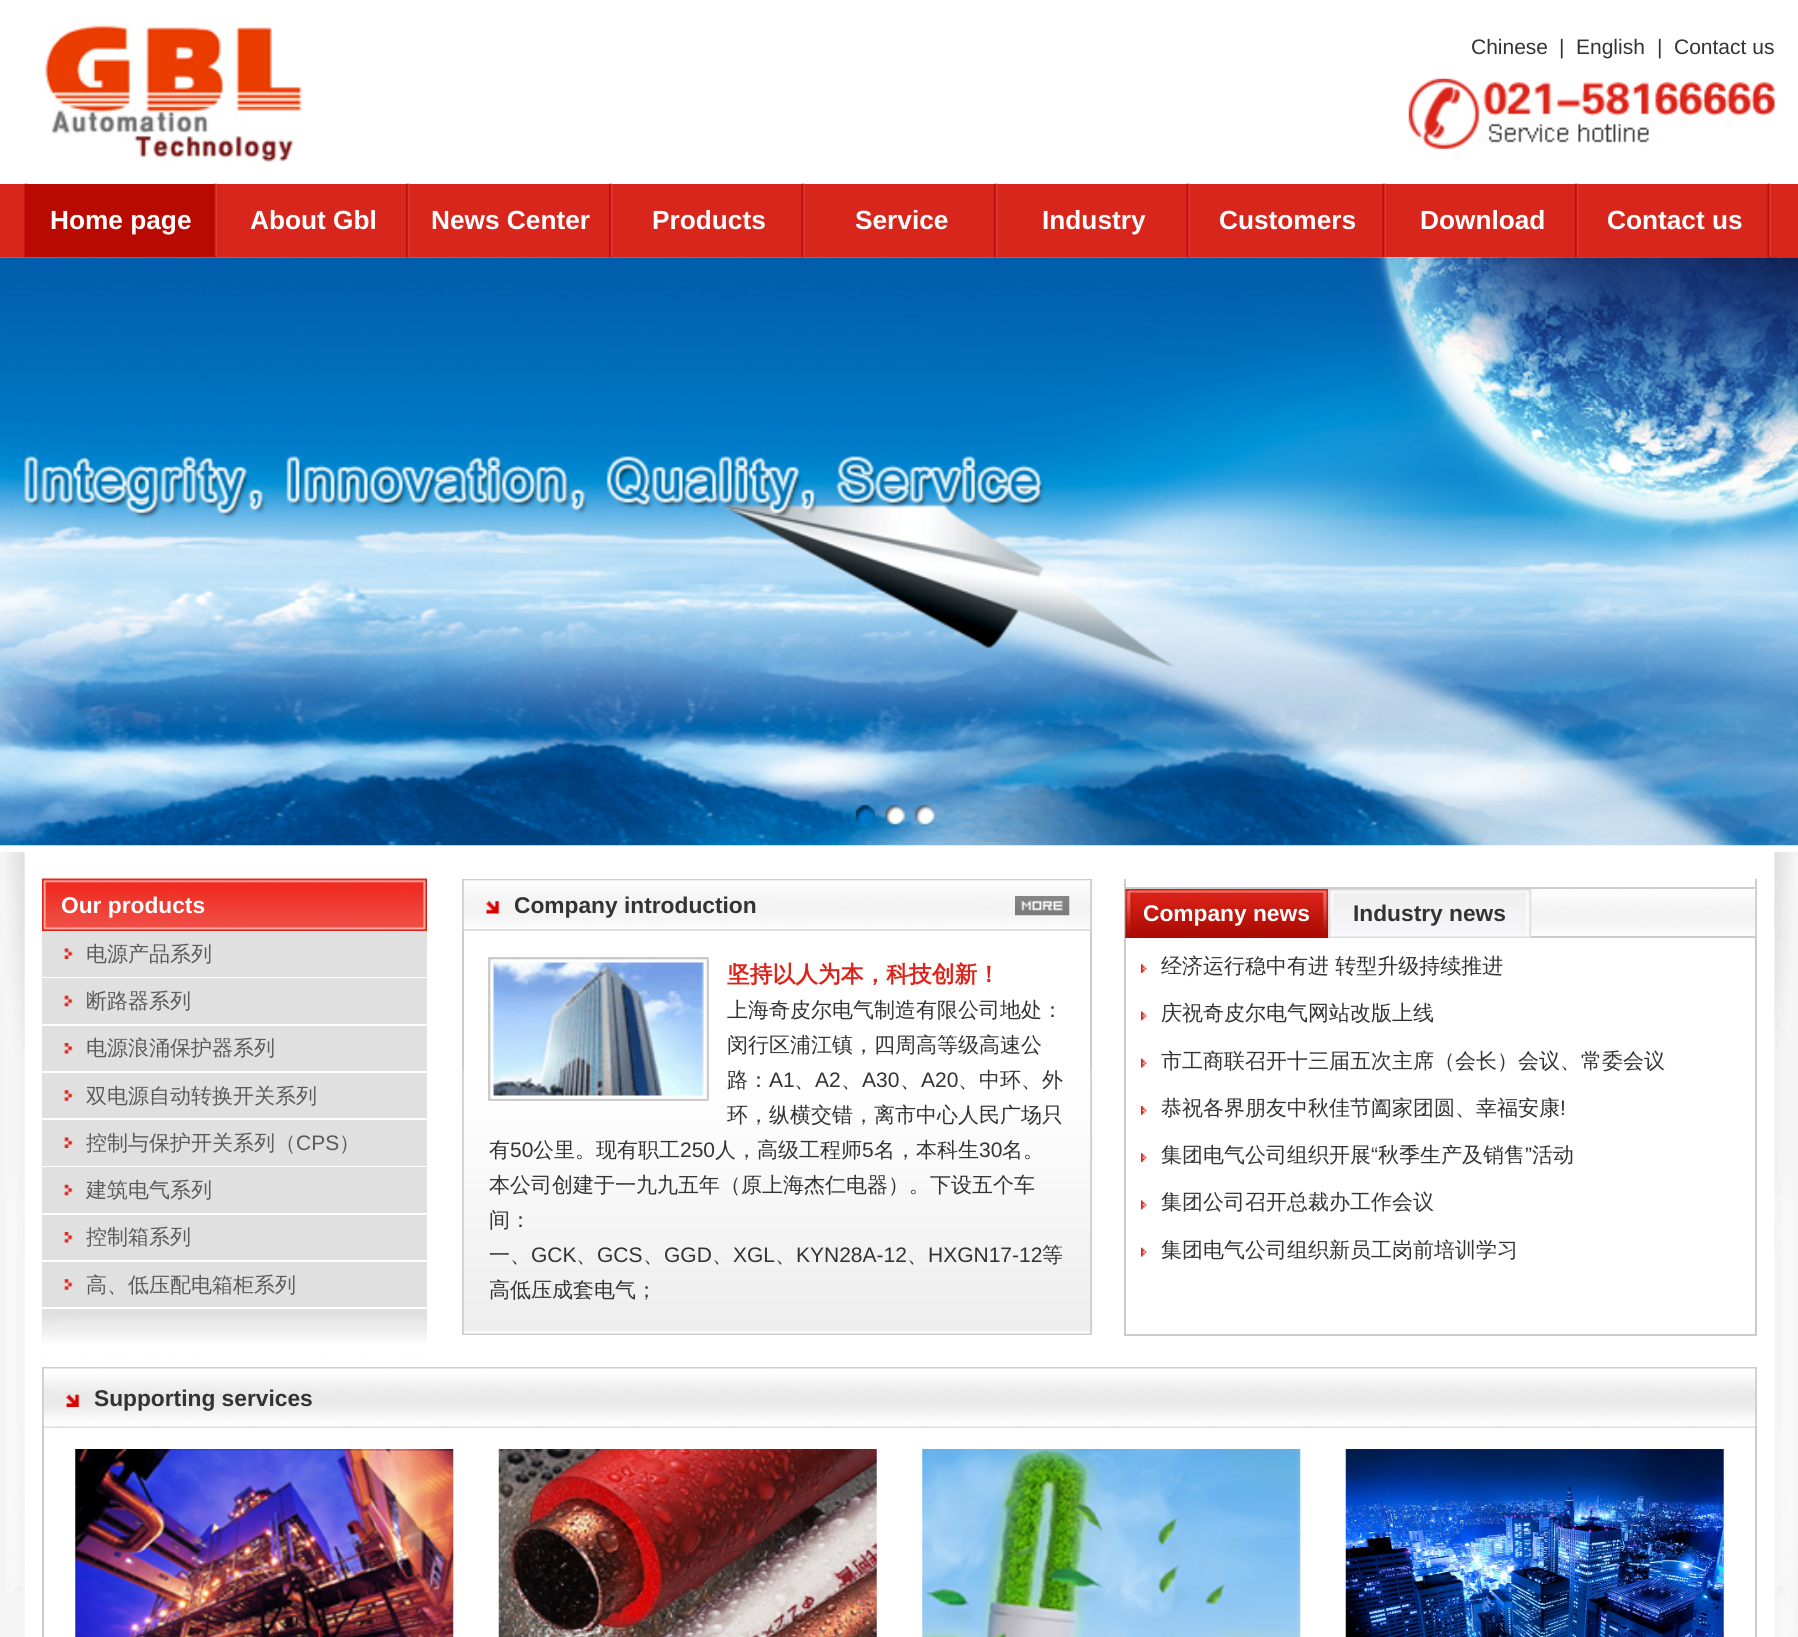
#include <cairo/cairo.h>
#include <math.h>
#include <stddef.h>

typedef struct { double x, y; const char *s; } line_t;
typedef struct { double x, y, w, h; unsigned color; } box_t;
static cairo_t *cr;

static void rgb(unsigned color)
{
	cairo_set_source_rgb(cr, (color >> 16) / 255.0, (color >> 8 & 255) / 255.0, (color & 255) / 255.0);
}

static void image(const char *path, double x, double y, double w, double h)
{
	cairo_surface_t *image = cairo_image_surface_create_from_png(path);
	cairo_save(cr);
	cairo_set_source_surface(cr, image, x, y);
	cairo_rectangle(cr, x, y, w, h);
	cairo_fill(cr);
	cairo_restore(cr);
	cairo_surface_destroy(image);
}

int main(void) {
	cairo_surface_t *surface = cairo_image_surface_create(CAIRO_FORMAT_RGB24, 1798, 1637);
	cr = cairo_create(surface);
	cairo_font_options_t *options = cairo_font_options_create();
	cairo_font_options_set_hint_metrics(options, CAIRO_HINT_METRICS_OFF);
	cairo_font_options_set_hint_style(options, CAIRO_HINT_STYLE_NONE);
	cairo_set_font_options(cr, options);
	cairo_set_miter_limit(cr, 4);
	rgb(0xffffff);
	cairo_paint(cr);
	image("img/1.png", 45, 25, 257, 137);
	image("img/2.png", 1408, 78, 367, 71);
	rgb(0xd8261c);
	cairo_rectangle(cr, 0, 184, 1798, 73);
	cairo_fill(cr);
	image("img/3.png", 24, 183, 4, 75);
	rgb(0xb80a01);
	cairo_rectangle(cr, 25, 184, 189, 73);
	cairo_fill(cr);
	image("img/4.png", 213, 183, 4, 75);
	image("img/5.png", 406, 183, 4, 75);
	image("img/5.png", 609, 183, 4, 75);
	image("img/3.png", 801, 183, 4, 75);
	image("img/5.png", 994, 183, 4, 75);
	image("img/3.png", 1186, 183, 4, 75);
	image("img/3.png", 1382, 183, 4, 75);
	image("img/5.png", 1575, 183, 4, 75);
	image("img/3.png", 1767, 183, 4, 75);
	image("img/6.png", 0, 257, 1798, 589);
	image("img/7.png", 855, 805, 20, 19);
	image("img/8.png", 885, 805, 20, 20);
	image("img/9.png", 915, 805, 20, 20);
	rgb(0xf5f5f5);
	cairo_rectangle(cr, 0, 852, 1798, 785);
	cairo_fill(cr);
	image("img/10.png", 2, 852, 23, 742);
	rgb(0xffffff);
	cairo_rectangle(cr, 25, 852, 1750, 785);
	cairo_fill(cr);
	image("img/11.png", 42, 878, 385, 53);
	rgb(0xe0e0e0);
	cairo_rectangle(cr, 42, 931, 385, 46);
	cairo_fill(cr);
	image("img/12.png", 64, 948, 9, 11);
	cairo_rectangle(cr, 42, 978, 385, 46);
	cairo_fill(cr);
	image("img/13.png", 64, 995, 9, 12);
	cairo_rectangle(cr, 42, 1026, 385, 45);
	cairo_fill(cr);
	image("img/14.png", 64, 1043, 9, 11);
	cairo_rectangle(cr, 42, 1073, 385, 45);
	cairo_fill(cr);
	image("img/15.png", 64, 1090, 9, 11);
	cairo_rectangle(cr, 42, 1120, 385, 46);
	cairo_fill(cr);
	image("img/12.png", 64, 1137, 9, 11);
	cairo_rectangle(cr, 42, 1167, 385, 46);
	cairo_fill(cr);
	image("img/13.png", 64, 1184, 9, 12);
	cairo_rectangle(cr, 42, 1215, 385, 45);
	cairo_fill(cr);
	image("img/14.png", 64, 1232, 9, 11);
	cairo_rectangle(cr, 42, 1262, 385, 45);
	cairo_fill(cr);
	image("img/15.png", 64, 1279, 9, 11);
	image("img/16.png", 42, 1309, 385, 47);
	cairo_rectangle(cr, 463, 880, 628, 454);
	rgb(0xcccccc);
	cairo_stroke(cr);
	image("img/17.png", 463, 880, 628, 51);
	rgb(0xdfdfdf);
	cairo_rectangle(cr, 464, 929, 626, 2);
	cairo_fill(cr);
	image("img/18.png", 486, 901, 14, 13);
	image("img/19.png", 1015, 896, 55, 20);
	image("img/20.png", 463, 1069, 628, 265);
	image("img/21.png", 488, 957, 221, 144);
	{
		static const box_t items[] = {
			{1755, 879, 2, 456, 0xcccccc},
			{1124, 1334, 633, 2, 0xcccccc},
			{1124, 879, 2, 456, 0xcccccc},
		};
		for (size_t i = 0; i < sizeof items / sizeof *items; i++) {
			rgb(items[i].color);
			cairo_rectangle(cr, items[i].x, items[i].y, items[i].w, items[i].h);
			cairo_fill(cr);
		}
	}
	image("img/22.png", 1125, 887, 631, 50);
	cairo_rectangle(cr, 1125, 887, 630, 2);
	cairo_fill(cr);
	cairo_rectangle(cr, 1125, 936, 630, 2);
	cairo_fill(cr);
	image("img/23.png", 1125, 889, 204, 49);
	image("img/24.png", 1328, 889, 204, 49);
	image("img/25.png", 1141, 964, 6, 9);
	image("img/26.png", 1141, 1011, 6, 10);
	image("img/27.png", 1141, 1058, 6, 10);
	image("img/28.png", 1141, 1106, 6, 9);
	image("img/25.png", 1141, 1153, 6, 9);
	image("img/26.png", 1141, 1200, 6, 10);
	image("img/27.png", 1141, 1247, 6, 10);
	cairo_rectangle(cr, 43, 1368, 1713, 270);
	cairo_stroke(cr);
	image("img/29.png", 43, 1368, 1713, 60);
	image("img/30.png", 66, 1394, 14, 13);
	image("img/31.png", 75, 1449, 379, 188);
	image("img/32.png", 498, 1449, 379, 188);
	image("img/33.png", 922, 1449, 379, 188);
	image("img/34.png", 1345, 1449, 379, 188);
	image("img/35.png", 1774, 852, 23, 785);
	cairo_select_font_face(cr, "Liberation Sans", CAIRO_FONT_SLANT_NORMAL, CAIRO_FONT_WEIGHT_NORMAL);
	cairo_set_font_size(cr, 21);
	rgb(0x333333);
	{
		static const line_t items[] = {
			{1471, 54, "Chinese"},
			{1559, 54, "|"},
			{1576, 54, "English"},
			{1657, 54, "|"},
			{1674, 54, "Contact us"},
		};
		for (size_t i = 0; i < sizeof items / sizeof *items; i++) {
			cairo_move_to(cr, items[i].x, items[i].y);
			cairo_show_text(cr, items[i].s);
		}
	}
	cairo_select_font_face(cr, "Liberation Sans", CAIRO_FONT_SLANT_NORMAL, CAIRO_FONT_WEIGHT_BOLD);
	cairo_set_font_size(cr, 26.25);
	rgb(0xffffff);
	{
		static const line_t items[] = {
			{50, 229, "Home page"},
			{250, 229, "About Gbl"},
			{431, 229, "News Center"},
			{652, 229, "Products"},
			{855, 229, "Service"},
			{1042, 229, "Industry"},
			{1219, 229, "Customers"},
			{1420, 229, "Download"},
			{1607, 229, "Contact us"},
		};
		for (size_t i = 0; i < sizeof items / sizeof *items; i++) {
			cairo_move_to(cr, items[i].x, items[i].y);
			cairo_show_text(cr, items[i].s);
		}
	}
	cairo_set_font_size(cr, 22.75);
	cairo_move_to(cr, 61, 913);
	cairo_show_text(cr, "Our products");
	cairo_select_font_face(cr, "WenQuanYi Zen Hei Medium", CAIRO_FONT_SLANT_NORMAL, CAIRO_FONT_WEIGHT_NORMAL);
	cairo_set_font_size(cr, 21);
	rgb(0x5a5a5a);
	{
		static const line_t items[] = {
			{86, 961, "电源产品系列"},
			{86, 1008, "断路器系列"},
			{86, 1055, "电源浪涌保护器系列"},
			{86, 1103, "双电源自动转换开关系列"},
			{86, 1150, "控制与保护开关系列（"},
		};
		for (size_t i = 0; i < sizeof items / sizeof *items; i++) {
			cairo_move_to(cr, items[i].x, items[i].y);
			cairo_show_text(cr, items[i].s);
		}
	}
	cairo_select_font_face(cr, "Liberation Sans", CAIRO_FONT_SLANT_NORMAL, CAIRO_FONT_WEIGHT_NORMAL);
	cairo_move_to(cr, 296, 1150);
	cairo_show_text(cr, "CPS");
	cairo_select_font_face(cr, "WenQuanYi Zen Hei Medium", CAIRO_FONT_SLANT_NORMAL, CAIRO_FONT_WEIGHT_NORMAL);
	{
		static const line_t items[] = {
			{339, 1150, "）"},
			{86, 1197, "建筑电气系列"},
			{86, 1244, "控制箱系列"},
			{86, 1292, "高、低压配电箱柜系列"},
		};
		for (size_t i = 0; i < sizeof items / sizeof *items; i++) {
			cairo_move_to(cr, items[i].x, items[i].y);
			cairo_show_text(cr, items[i].s);
		}
	}
	cairo_select_font_face(cr, "Liberation Sans", CAIRO_FONT_SLANT_NORMAL, CAIRO_FONT_WEIGHT_BOLD);
	cairo_set_font_size(cr, 22.75);
	rgb(0x333333);
	cairo_move_to(cr, 514, 913);
	cairo_show_text(cr, "Company introduction");
	cairo_select_font_face(cr, "WenQuanYi Zen Hei", CAIRO_FONT_SLANT_NORMAL, CAIRO_FONT_WEIGHT_BOLD);
	rgb(0xdc241a);
	cairo_move_to(cr, 727, 982);
	cairo_show_text(cr, "坚持以人为本，科技创新！");
	cairo_select_font_face(cr, "WenQuanYi Zen Hei Medium", CAIRO_FONT_SLANT_NORMAL, CAIRO_FONT_WEIGHT_NORMAL);
	cairo_set_font_size(cr, 21);
	rgb(0x333333);
	{
		static const line_t items[] = {
			{727, 1017, "上海奇皮尔电气制造有限公司地处："},
			{727, 1052, "闵行区浦江镇，四周高等级高速公"},
			{727, 1087, "路："},
		};
		for (size_t i = 0; i < sizeof items / sizeof *items; i++) {
			cairo_move_to(cr, items[i].x, items[i].y);
			cairo_show_text(cr, items[i].s);
		}
	}
	cairo_select_font_face(cr, "Liberation Sans", CAIRO_FONT_SLANT_NORMAL, CAIRO_FONT_WEIGHT_NORMAL);
	cairo_move_to(cr, 769, 1087);
	cairo_show_text(cr, "A1");
	cairo_select_font_face(cr, "WenQuanYi Zen Hei Medium", CAIRO_FONT_SLANT_NORMAL, CAIRO_FONT_WEIGHT_NORMAL);
	cairo_move_to(cr, 794, 1087);
	cairo_show_text(cr, "、");
	cairo_select_font_face(cr, "Liberation Sans", CAIRO_FONT_SLANT_NORMAL, CAIRO_FONT_WEIGHT_NORMAL);
	cairo_move_to(cr, 815, 1087);
	cairo_show_text(cr, "A2");
	cairo_select_font_face(cr, "WenQuanYi Zen Hei Medium", CAIRO_FONT_SLANT_NORMAL, CAIRO_FONT_WEIGHT_NORMAL);
	cairo_move_to(cr, 841, 1087);
	cairo_show_text(cr, "、");
	cairo_select_font_face(cr, "Liberation Sans", CAIRO_FONT_SLANT_NORMAL, CAIRO_FONT_WEIGHT_NORMAL);
	cairo_move_to(cr, 862, 1087);
	cairo_show_text(cr, "A30");
	cairo_select_font_face(cr, "WenQuanYi Zen Hei Medium", CAIRO_FONT_SLANT_NORMAL, CAIRO_FONT_WEIGHT_NORMAL);
	cairo_move_to(cr, 900, 1087);
	cairo_show_text(cr, "、");
	cairo_select_font_face(cr, "Liberation Sans", CAIRO_FONT_SLANT_NORMAL, CAIRO_FONT_WEIGHT_NORMAL);
	cairo_move_to(cr, 921, 1087);
	cairo_show_text(cr, "A20");
	cairo_select_font_face(cr, "WenQuanYi Zen Hei Medium", CAIRO_FONT_SLANT_NORMAL, CAIRO_FONT_WEIGHT_NORMAL);
	{
		static const line_t items[] = {
			{958, 1087, "、中环、外"},
			{727, 1122, "环，纵横交错，离市中心人民广场只"},
			{489, 1157, "有"},
		};
		for (size_t i = 0; i < sizeof items / sizeof *items; i++) {
			cairo_move_to(cr, items[i].x, items[i].y);
			cairo_show_text(cr, items[i].s);
		}
	}
	cairo_select_font_face(cr, "Liberation Sans", CAIRO_FONT_SLANT_NORMAL, CAIRO_FONT_WEIGHT_NORMAL);
	cairo_move_to(cr, 510, 1157);
	cairo_show_text(cr, "50");
	cairo_select_font_face(cr, "WenQuanYi Zen Hei Medium", CAIRO_FONT_SLANT_NORMAL, CAIRO_FONT_WEIGHT_NORMAL);
	cairo_move_to(cr, 533, 1157);
	cairo_show_text(cr, "公里。现有职工");
	cairo_select_font_face(cr, "Liberation Sans", CAIRO_FONT_SLANT_NORMAL, CAIRO_FONT_WEIGHT_NORMAL);
	cairo_move_to(cr, 680, 1157);
	cairo_show_text(cr, "250");
	cairo_select_font_face(cr, "WenQuanYi Zen Hei Medium", CAIRO_FONT_SLANT_NORMAL, CAIRO_FONT_WEIGHT_NORMAL);
	cairo_move_to(cr, 715, 1157);
	cairo_show_text(cr, "人，高级工程师");
	cairo_select_font_face(cr, "Liberation Sans", CAIRO_FONT_SLANT_NORMAL, CAIRO_FONT_WEIGHT_NORMAL);
	cairo_move_to(cr, 862, 1157);
	cairo_show_text(cr, "5");
	cairo_select_font_face(cr, "WenQuanYi Zen Hei Medium", CAIRO_FONT_SLANT_NORMAL, CAIRO_FONT_WEIGHT_NORMAL);
	cairo_move_to(cr, 874, 1157);
	cairo_show_text(cr, "名，本科生");
	cairo_select_font_face(cr, "Liberation Sans", CAIRO_FONT_SLANT_NORMAL, CAIRO_FONT_WEIGHT_NORMAL);
	cairo_move_to(cr, 979, 1157);
	cairo_show_text(cr, "30");
	cairo_select_font_face(cr, "WenQuanYi Zen Hei Medium", CAIRO_FONT_SLANT_NORMAL, CAIRO_FONT_WEIGHT_NORMAL);
	{
		static const line_t items[] = {
			{1002, 1157, "名。"},
			{489, 1192, "本公司创建于一九九五年（原上海杰仁电器）。下设五个车"},
			{489, 1227, "间："},
			{489, 1262, "一、"},
		};
		for (size_t i = 0; i < sizeof items / sizeof *items; i++) {
			cairo_move_to(cr, items[i].x, items[i].y);
			cairo_show_text(cr, items[i].s);
		}
	}
	cairo_select_font_face(cr, "Liberation Sans", CAIRO_FONT_SLANT_NORMAL, CAIRO_FONT_WEIGHT_NORMAL);
	cairo_move_to(cr, 531, 1262);
	cairo_show_text(cr, "GCK");
	cairo_select_font_face(cr, "WenQuanYi Zen Hei Medium", CAIRO_FONT_SLANT_NORMAL, CAIRO_FONT_WEIGHT_NORMAL);
	cairo_move_to(cr, 576, 1262);
	cairo_show_text(cr, "、");
	cairo_select_font_face(cr, "Liberation Sans", CAIRO_FONT_SLANT_NORMAL, CAIRO_FONT_WEIGHT_NORMAL);
	cairo_move_to(cr, 597, 1262);
	cairo_show_text(cr, "GCS");
	cairo_select_font_face(cr, "WenQuanYi Zen Hei Medium", CAIRO_FONT_SLANT_NORMAL, CAIRO_FONT_WEIGHT_NORMAL);
	cairo_move_to(cr, 643, 1262);
	cairo_show_text(cr, "、");
	cairo_select_font_face(cr, "Liberation Sans", CAIRO_FONT_SLANT_NORMAL, CAIRO_FONT_WEIGHT_NORMAL);
	cairo_move_to(cr, 664, 1262);
	cairo_show_text(cr, "GGD");
	cairo_select_font_face(cr, "WenQuanYi Zen Hei Medium", CAIRO_FONT_SLANT_NORMAL, CAIRO_FONT_WEIGHT_NORMAL);
	cairo_move_to(cr, 712, 1262);
	cairo_show_text(cr, "、");
	cairo_select_font_face(cr, "Liberation Sans", CAIRO_FONT_SLANT_NORMAL, CAIRO_FONT_WEIGHT_NORMAL);
	cairo_move_to(cr, 733, 1262);
	cairo_show_text(cr, "XGL");
	cairo_select_font_face(cr, "WenQuanYi Zen Hei Medium", CAIRO_FONT_SLANT_NORMAL, CAIRO_FONT_WEIGHT_NORMAL);
	cairo_move_to(cr, 775, 1262);
	cairo_show_text(cr, "、");
	cairo_select_font_face(cr, "Liberation Sans", CAIRO_FONT_SLANT_NORMAL, CAIRO_FONT_WEIGHT_NORMAL);
	cairo_move_to(cr, 796, 1262);
	cairo_show_text(cr, "KYN28A-12");
	cairo_select_font_face(cr, "WenQuanYi Zen Hei Medium", CAIRO_FONT_SLANT_NORMAL, CAIRO_FONT_WEIGHT_NORMAL);
	cairo_move_to(cr, 907, 1262);
	cairo_show_text(cr, "、");
	cairo_select_font_face(cr, "Liberation Sans", CAIRO_FONT_SLANT_NORMAL, CAIRO_FONT_WEIGHT_NORMAL);
	cairo_move_to(cr, 928, 1262);
	cairo_show_text(cr, "HXGN17-12");
	cairo_select_font_face(cr, "WenQuanYi Zen Hei Medium", CAIRO_FONT_SLANT_NORMAL, CAIRO_FONT_WEIGHT_NORMAL);
	cairo_move_to(cr, 1042, 1262);
	cairo_show_text(cr, "等");
	cairo_move_to(cr, 489, 1297);
	cairo_show_text(cr, "高低压成套电气；");
	cairo_select_font_face(cr, "Liberation Sans", CAIRO_FONT_SLANT_NORMAL, CAIRO_FONT_WEIGHT_BOLD);
	cairo_set_font_size(cr, 22.75);
	rgb(0xffffff);
	cairo_move_to(cr, 1143, 921);
	cairo_show_text(cr, "Company news");
	rgb(0x333333);
	cairo_move_to(cr, 1353, 921);
	cairo_show_text(cr, "Industry news");
	cairo_select_font_face(cr, "WenQuanYi Zen Hei Medium", CAIRO_FONT_SLANT_NORMAL, CAIRO_FONT_WEIGHT_NORMAL);
	cairo_set_font_size(cr, 21);
	{
		static const line_t items[] = {
			{1161, 973, "经济运行稳中有进 转型升级持续推进"},
			{1161, 1020, "庆祝奇皮尔电气网站改版上线"},
			{1161, 1068, "市工商联召开十三届五次主席（会长）会议、常委会议"},
			{1161, 1115, "恭祝各界朋友中秋佳节阖家团圆、幸福安康"},
		};
		for (size_t i = 0; i < sizeof items / sizeof *items; i++) {
			cairo_move_to(cr, items[i].x, items[i].y);
			cairo_show_text(cr, items[i].s);
		}
	}
	cairo_select_font_face(cr, "Liberation Sans", CAIRO_FONT_SLANT_NORMAL, CAIRO_FONT_WEIGHT_NORMAL);
	cairo_move_to(cr, 1560, 1115);
	cairo_show_text(cr, "!");
	cairo_select_font_face(cr, "WenQuanYi Zen Hei Medium", CAIRO_FONT_SLANT_NORMAL, CAIRO_FONT_WEIGHT_NORMAL);
	cairo_move_to(cr, 1161, 1162);
	cairo_show_text(cr, "集团电气公司组织开展");
	cairo_select_font_face(cr, "Liberation Sans", CAIRO_FONT_SLANT_NORMAL, CAIRO_FONT_WEIGHT_NORMAL);
	cairo_move_to(cr, 1371, 1162);
	cairo_show_text(cr, "“");
	cairo_select_font_face(cr, "WenQuanYi Zen Hei Medium", CAIRO_FONT_SLANT_NORMAL, CAIRO_FONT_WEIGHT_NORMAL);
	cairo_move_to(cr, 1378, 1162);
	cairo_show_text(cr, "秋季生产及销售");
	cairo_select_font_face(cr, "Liberation Sans", CAIRO_FONT_SLANT_NORMAL, CAIRO_FONT_WEIGHT_NORMAL);
	cairo_move_to(cr, 1525, 1162);
	cairo_show_text(cr, "”");
	cairo_select_font_face(cr, "WenQuanYi Zen Hei Medium", CAIRO_FONT_SLANT_NORMAL, CAIRO_FONT_WEIGHT_NORMAL);
	{
		static const line_t items[] = {
			{1532, 1162, "活动"},
			{1161, 1209, "集团公司召开总裁办工作会议"},
			{1161, 1257, "集团电气公司组织新员工岗前培训学习"},
		};
		for (size_t i = 0; i < sizeof items / sizeof *items; i++) {
			cairo_move_to(cr, items[i].x, items[i].y);
			cairo_show_text(cr, items[i].s);
		}
	}
	cairo_select_font_face(cr, "Liberation Sans", CAIRO_FONT_SLANT_NORMAL, CAIRO_FONT_WEIGHT_BOLD);
	cairo_set_font_size(cr, 22.75);
	cairo_move_to(cr, 94, 1406);
	cairo_show_text(cr, "Supporting services");
	cairo_surface_write_to_png(surface, "page.png");
	cairo_font_options_destroy(options);
	cairo_destroy(cr);
	cairo_surface_destroy(surface);
	return 0;
}
